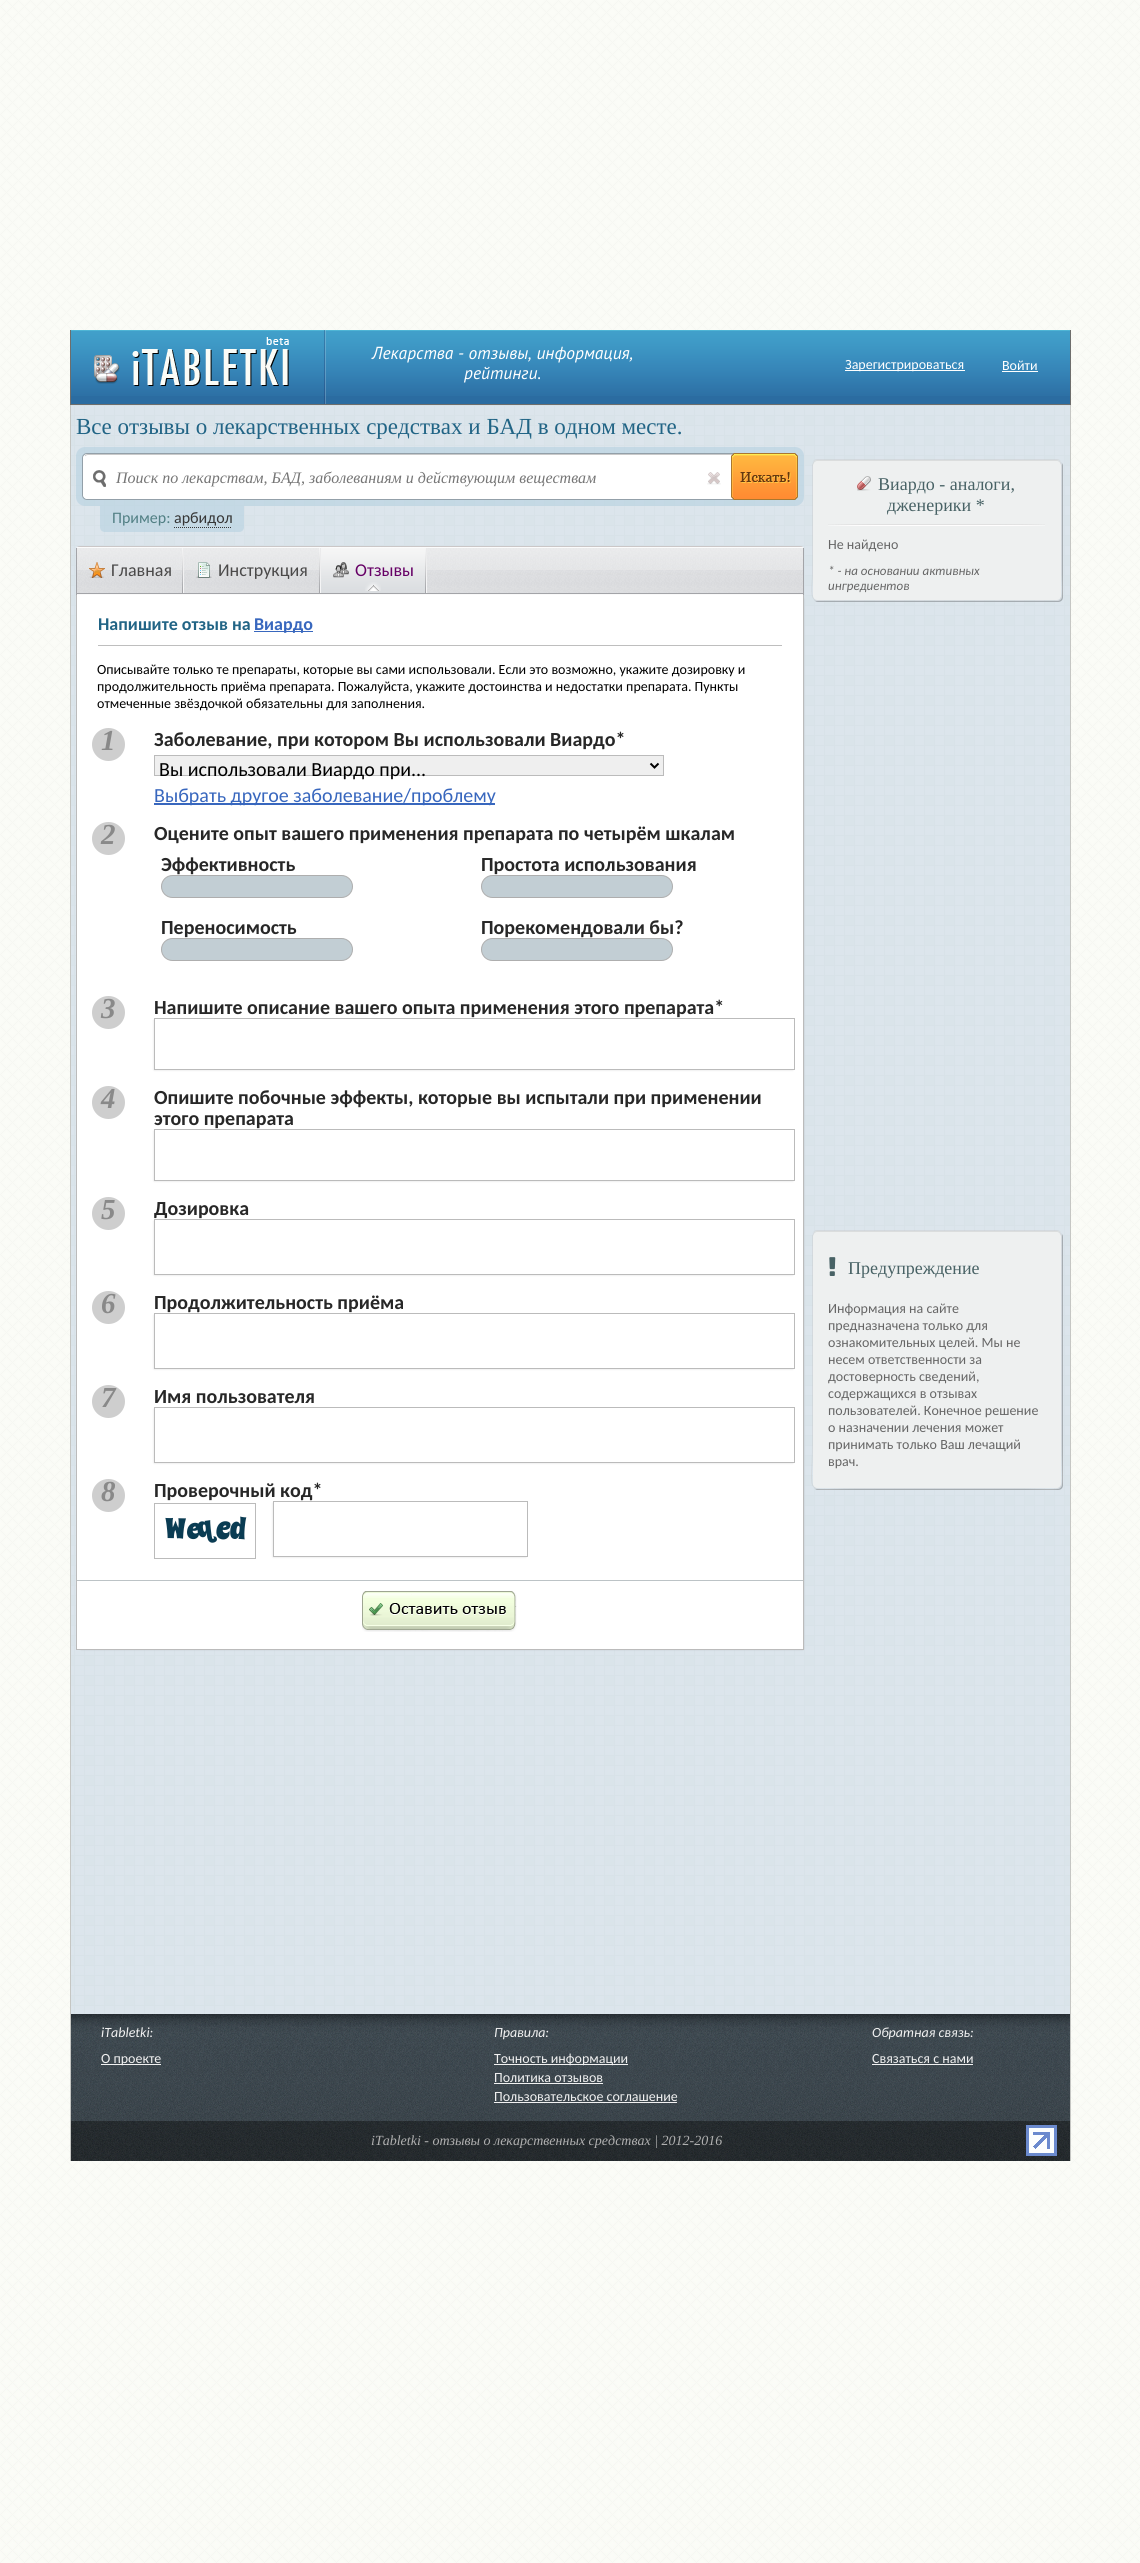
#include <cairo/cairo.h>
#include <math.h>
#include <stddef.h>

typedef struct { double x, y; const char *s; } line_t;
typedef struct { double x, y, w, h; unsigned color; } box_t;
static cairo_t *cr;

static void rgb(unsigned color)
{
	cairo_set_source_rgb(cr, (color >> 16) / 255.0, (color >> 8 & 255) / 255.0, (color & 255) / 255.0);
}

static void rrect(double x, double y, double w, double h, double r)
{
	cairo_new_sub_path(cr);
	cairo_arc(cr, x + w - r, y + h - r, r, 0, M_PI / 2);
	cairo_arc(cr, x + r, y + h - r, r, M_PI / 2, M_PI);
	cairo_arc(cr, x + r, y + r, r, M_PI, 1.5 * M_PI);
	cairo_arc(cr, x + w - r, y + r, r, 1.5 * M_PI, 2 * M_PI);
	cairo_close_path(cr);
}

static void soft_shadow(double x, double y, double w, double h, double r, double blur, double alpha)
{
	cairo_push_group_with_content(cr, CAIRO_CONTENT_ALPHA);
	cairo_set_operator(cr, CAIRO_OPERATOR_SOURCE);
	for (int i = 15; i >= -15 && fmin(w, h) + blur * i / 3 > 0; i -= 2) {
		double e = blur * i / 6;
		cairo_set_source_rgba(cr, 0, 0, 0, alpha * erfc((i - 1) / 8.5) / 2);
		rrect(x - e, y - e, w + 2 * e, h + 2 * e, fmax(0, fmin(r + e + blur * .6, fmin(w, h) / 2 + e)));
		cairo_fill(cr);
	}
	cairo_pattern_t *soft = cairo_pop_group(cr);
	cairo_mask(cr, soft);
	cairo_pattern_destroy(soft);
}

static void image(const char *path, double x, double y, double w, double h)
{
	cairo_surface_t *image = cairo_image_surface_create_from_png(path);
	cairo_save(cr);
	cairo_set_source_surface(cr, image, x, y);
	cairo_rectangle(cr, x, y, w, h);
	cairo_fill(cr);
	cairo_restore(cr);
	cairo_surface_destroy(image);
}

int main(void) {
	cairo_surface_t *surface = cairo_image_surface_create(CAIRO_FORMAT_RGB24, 1140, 2563);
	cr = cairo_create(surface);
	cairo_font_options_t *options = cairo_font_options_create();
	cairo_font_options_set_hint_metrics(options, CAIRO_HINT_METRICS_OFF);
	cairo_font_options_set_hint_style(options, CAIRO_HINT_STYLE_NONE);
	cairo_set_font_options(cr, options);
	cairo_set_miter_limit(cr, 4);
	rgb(0xffffff);
	cairo_paint(cr);
	image("img/1.png", 0, 0, 1140, 2563);
	rgb(0x2b6ca1);
	cairo_rectangle(cr, 71, 396, 999, 8);
	cairo_fill(cr);
	image("img/2.png", 71, 330, 999, 66);
	{
		static const box_t items[] = {
			{1070, 330, 1, 75, 0x6e6e6c},
			{70, 404, 1001, 1, 0x6e6e6c},
			{70, 330, 1, 75, 0x6e6e6c},
		};
		for (size_t i = 0; i < sizeof items / sizeof *items; i++) {
			rgb(items[i].color);
			cairo_rectangle(cr, items[i].x, items[i].y, items[i].w, items[i].h);
			cairo_fill(cr);
		}
	}
	image("img/3.png", 94, 330, 232, 74);
	rgb(0xffffff);
	cairo_rectangle(cr, 845, 370, 120, 1);
	cairo_fill(cr);
	cairo_rectangle(cr, 1002, 371, 36, 1);
	cairo_fill(cr);
	image("img/4.png", 71, 405, 999, 1609);
	rgb(0xc5c6c3);
	cairo_rectangle(cr, 1070, 405, 1, 1756);
	cairo_fill(cr);
	cairo_rectangle(cr, 70, 405, 1, 1756);
	cairo_fill(cr);
	cairo_set_source_rgba(cr, 0.698, 0.812, 0.882, 0.54);
	rrect(76, 447, 728, 59, 9);
	cairo_fill(cr);
	rgb(0xffffff);
	rrect(82.5, 453.5, 715, 46, 4.5);
	cairo_fill_preserve(cr);
	rgb(0x93a0a9);
	cairo_set_line_width(cr, 1);
	cairo_stroke(cr);
	image("img/5.png", 93, 470, 13, 17);
	cairo_new_path(cr);
	cairo_move_to(cr, 85, 456);
	cairo_curve_to(cr, 85.5, 455, 87, 454.5, 88, 454.5);
	cairo_line_to(cr, 792, 454.5);
	cairo_curve_to(cr, 793, 454.5, 794.5, 455, 795, 456);
	rgb(0xc9c9c9);
	cairo_stroke(cr);
	cairo_new_path(cr);
	cairo_move_to(cr, 795, 456);
	cairo_curve_to(cr, 796, 456.5, 796.5, 458, 796.5, 459);
	cairo_line_to(cr, 796.5, 494);
	cairo_curve_to(cr, 796.5, 495, 796, 496.5, 795, 497);
	cairo_curve_to(cr, 794.5, 498, 793, 498.5, 792, 498.5);
	cairo_line_to(cr, 88, 498.5);
	cairo_curve_to(cr, 87, 498.5, 85.5, 498, 85, 497);
	cairo_curve_to(cr, 84, 496.5, 83.5, 495, 83.5, 494);
	cairo_line_to(cr, 83.5, 459);
	cairo_curve_to(cr, 83.5, 458, 84, 456.5, 85, 456);
	rgb(0xffffff);
	cairo_stroke(cr);
	image("img/6.png", 707, 472, 14, 13);
	image("img/7.png", 731, 453, 67, 47);
	cairo_set_source_rgba(cr, 0.698, 0.812, 0.882, 0.54);
	cairo_new_path(cr);
	cairo_move_to(cr, 100, 506);
	cairo_line_to(cr, 244, 506);
	cairo_line_to(cr, 244, 527);
	cairo_curve_to(cr, 244, 530, 242, 532, 239, 532);
	cairo_line_to(cr, 105, 532);
	cairo_curve_to(cr, 102, 532, 100, 530, 100, 527);
	cairo_close_path(cr);
	cairo_fill(cr);
	cairo_new_path(cr);
	cairo_move_to(cr, 174, 527.5);
	cairo_line_to(cr, 232, 527.5);
	rgb(0x363636);
	cairo_set_dash(cr, (double[]){1, 1}, 2, 0);
	cairo_stroke(cr);
	rgb(0x888888);
	soft_shadow(81, 599, 722, 1050, 0, 1, 1);
	rgb(0xffffff);
	cairo_rectangle(cr, 76.5, 594.5, 727, 1055);
	cairo_fill_preserve(cr);
	rgb(0xbbbbbb);
	cairo_set_dash(cr, NULL, 0, 0);
	cairo_stroke(cr);
	image("img/8.png", 76, 546, 728, 49);
	rgb(0xa3a4a8);
	cairo_rectangle(cr, 803, 548, 1, 47);
	cairo_fill(cr);
	cairo_rectangle(cr, 76, 548, 1, 47);
	cairo_fill(cr);
	image("img/9.png", 182, 548, 2, 45);
	image("img/10.png", 89, 562, 16, 16);
	image("img/9.png", 319, 548, 2, 45);
	image("img/11.png", 196, 562, 16, 16);
	image("img/9.png", 425, 548, 2, 45);
	image("img/12.png", 321, 548, 104, 45);
	image("img/13.png", 333, 562, 16, 16);
	image("img/14.png", 365, 582, 16, 9);
	rgb(0xbebebe);
	cairo_rectangle(cr, 98, 645, 684, 1);
	cairo_fill(cr);
	rgb(0x3867be);
	cairo_rectangle(cr, 254, 631, 59, 1);
	cairo_fill(cr);
	rgb(0xcecece);
	cairo_arc(cr, 108.5, 744.5, 16.5, 0, 2 * M_PI);
	cairo_fill(cr);
	rgb(0xefefef);
	cairo_rectangle(cr, 154.5, 755.5, 509, 20);
	cairo_fill_preserve(cr);
	rgb(0xbbbbbb);
	cairo_stroke(cr);
	cairo_new_path(cr);
	cairo_move_to(cr, 650.5, 763.5);
	cairo_line_to(cr, 654.5, 767.5);
	cairo_line_to(cr, 658.5, 763.5);
	rgb(0x000000);
	cairo_set_line_width(cr, 2);
	cairo_stroke(cr);
	rgb(0x3867be);
	cairo_rectangle(cr, 154, 803, 341, 2);
	cairo_fill(cr);
	rgb(0xcecece);
	cairo_arc(cr, 108.5, 838.5, 16.5, 0, 2 * M_PI);
	cairo_fill(cr);
	rgb(0xc2ced4);
	rrect(161.5, 875.5, 191, 22, 11);
	cairo_fill_preserve(cr);
	rgb(0xaeaeae);
	cairo_set_line_width(cr, 1);
	cairo_stroke(cr);
	rgb(0xc2ced4);
	rrect(481.5, 875.5, 191, 22, 11);
	cairo_fill_preserve(cr);
	rgb(0xaeaeae);
	cairo_stroke(cr);
	rgb(0xc2ced4);
	rrect(161.5, 938.5, 191, 22, 11);
	cairo_fill_preserve(cr);
	rgb(0xaeaeae);
	cairo_stroke(cr);
	rgb(0xc2ced4);
	rrect(481.5, 938.5, 191, 22, 11);
	cairo_fill_preserve(cr);
	rgb(0xaeaeae);
	cairo_stroke(cr);
	rgb(0xcecece);
	cairo_arc(cr, 108.5, 1012.5, 16.5, 0, 2 * M_PI);
	cairo_fill(cr);
	cairo_save(cr);
	cairo_set_fill_rule(cr, CAIRO_FILL_RULE_EVEN_ODD);
	cairo_new_path(cr);
	cairo_move_to(cr, 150, 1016);
	cairo_line_to(cr, 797, 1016);
	cairo_line_to(cr, 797, 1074);
	cairo_line_to(cr, 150, 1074);
	cairo_close_path(cr);
	cairo_move_to(cr, 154, 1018);
	cairo_line_to(cr, 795, 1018);
	cairo_line_to(cr, 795, 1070);
	cairo_line_to(cr, 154, 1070);
	cairo_close_path(cr);
	cairo_clip(cr);
	rgb(0xdddddd);
	soft_shadow(154, 1020, 639, 50, 0, 1, 1);
	cairo_restore(cr);
	cairo_rectangle(cr, 154.5, 1018.5, 640, 51);
	rgb(0xbbbbbb);
	cairo_stroke(cr);
	rgb(0xcecece);
	cairo_arc(cr, 108.5, 1102.5, 16.5, 0, 2 * M_PI);
	cairo_fill(cr);
	cairo_save(cr);
	cairo_set_fill_rule(cr, CAIRO_FILL_RULE_EVEN_ODD);
	cairo_new_path(cr);
	cairo_move_to(cr, 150, 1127);
	cairo_line_to(cr, 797, 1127);
	cairo_line_to(cr, 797, 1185);
	cairo_line_to(cr, 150, 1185);
	cairo_close_path(cr);
	cairo_move_to(cr, 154, 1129);
	cairo_line_to(cr, 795, 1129);
	cairo_line_to(cr, 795, 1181);
	cairo_line_to(cr, 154, 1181);
	cairo_close_path(cr);
	cairo_clip(cr);
	rgb(0xdddddd);
	soft_shadow(154, 1131, 639, 50, 0, 1, 1);
	cairo_restore(cr);
	cairo_rectangle(cr, 154.5, 1129.5, 640, 51);
	rgb(0xbbbbbb);
	cairo_stroke(cr);
	rgb(0xcecece);
	cairo_arc(cr, 108.5, 1213.5, 16.5, 0, 2 * M_PI);
	cairo_fill(cr);
	cairo_save(cr);
	cairo_set_fill_rule(cr, CAIRO_FILL_RULE_EVEN_ODD);
	cairo_new_path(cr);
	cairo_move_to(cr, 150, 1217);
	cairo_line_to(cr, 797, 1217);
	cairo_line_to(cr, 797, 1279);
	cairo_line_to(cr, 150, 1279);
	cairo_close_path(cr);
	cairo_move_to(cr, 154, 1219);
	cairo_line_to(cr, 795, 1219);
	cairo_line_to(cr, 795, 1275);
	cairo_line_to(cr, 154, 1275);
	cairo_close_path(cr);
	cairo_clip(cr);
	rgb(0xdddddd);
	soft_shadow(154, 1221, 639, 54, 0, 1, 1);
	cairo_restore(cr);
	cairo_rectangle(cr, 154.5, 1219.5, 640, 55);
	rgb(0xbbbbbb);
	cairo_stroke(cr);
	rgb(0xcecece);
	cairo_arc(cr, 108.5, 1307.5, 16.5, 0, 2 * M_PI);
	cairo_fill(cr);
	cairo_save(cr);
	cairo_set_fill_rule(cr, CAIRO_FILL_RULE_EVEN_ODD);
	cairo_new_path(cr);
	cairo_move_to(cr, 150, 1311);
	cairo_line_to(cr, 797, 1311);
	cairo_line_to(cr, 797, 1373);
	cairo_line_to(cr, 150, 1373);
	cairo_close_path(cr);
	cairo_move_to(cr, 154, 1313);
	cairo_line_to(cr, 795, 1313);
	cairo_line_to(cr, 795, 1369);
	cairo_line_to(cr, 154, 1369);
	cairo_close_path(cr);
	cairo_clip(cr);
	rgb(0xdddddd);
	soft_shadow(154, 1315, 639, 54, 0, 1, 1);
	cairo_restore(cr);
	cairo_rectangle(cr, 154.5, 1313.5, 640, 55);
	rgb(0xbbbbbb);
	cairo_stroke(cr);
	rgb(0xcecece);
	cairo_arc(cr, 108.5, 1401.5, 16.5, 0, 2 * M_PI);
	cairo_fill(cr);
	cairo_save(cr);
	cairo_set_fill_rule(cr, CAIRO_FILL_RULE_EVEN_ODD);
	cairo_new_path(cr);
	cairo_move_to(cr, 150, 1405);
	cairo_line_to(cr, 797, 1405);
	cairo_line_to(cr, 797, 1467);
	cairo_line_to(cr, 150, 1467);
	cairo_close_path(cr);
	cairo_move_to(cr, 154, 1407);
	cairo_line_to(cr, 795, 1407);
	cairo_line_to(cr, 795, 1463);
	cairo_line_to(cr, 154, 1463);
	cairo_close_path(cr);
	cairo_clip(cr);
	rgb(0xdddddd);
	soft_shadow(154, 1409, 639, 54, 0, 1, 1);
	cairo_restore(cr);
	cairo_rectangle(cr, 154.5, 1407.5, 640, 55);
	rgb(0xbbbbbb);
	cairo_stroke(cr);
	rgb(0xbcc3c6);
	cairo_rectangle(cr, 77, 1580, 726, 1);
	cairo_fill(cr);
	rgb(0xcecece);
	cairo_arc(cr, 108.5, 1495.5, 16.5, 0, 2 * M_PI);
	cairo_fill(cr);
	cairo_rectangle(cr, 154.5, 1503.5, 101, 55);
	rgb(0xbbbbbb);
	cairo_stroke(cr);
	image("img/15.png", 165, 1516, 82, 27);
	cairo_save(cr);
	cairo_set_fill_rule(cr, CAIRO_FILL_RULE_EVEN_ODD);
	cairo_new_path(cr);
	cairo_move_to(cr, 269, 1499);
	cairo_line_to(cr, 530, 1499);
	cairo_line_to(cr, 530, 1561);
	cairo_line_to(cr, 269, 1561);
	cairo_close_path(cr);
	cairo_move_to(cr, 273, 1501);
	cairo_line_to(cr, 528, 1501);
	cairo_line_to(cr, 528, 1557);
	cairo_line_to(cr, 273, 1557);
	cairo_close_path(cr);
	cairo_clip(cr);
	rgb(0xdddddd);
	soft_shadow(273, 1503, 253, 54, 0, 1, 1);
	cairo_restore(cr);
	cairo_rectangle(cr, 273.5, 1501.5, 254, 55);
	cairo_stroke(cr);
	image("img/16.png", 362, 1591, 155, 41);
	cairo_set_source_rgba(cr, 0.773, 0.773, 0.773, 0.36);
	cairo_new_path(cr);
	cairo_move_to(cr, 817, 459);
	cairo_curve_to(cr, 814, 459, 812, 462, 812, 465);
	cairo_curve_to(cr, 812, 462, 814, 460, 817, 460);
	cairo_line_to(cr, 1057, 460);
	cairo_curve_to(cr, 1060, 460, 1062, 462, 1062, 465);
	cairo_curve_to(cr, 1062, 462, 1060, 459, 1057, 459);
	cairo_close_path(cr);
	cairo_fill(cr);
	rgb(0xa5acb1);
	cairo_new_path(cr);
	cairo_move_to(cr, 814, 600);
	cairo_curve_to(cr, 815, 601, 816, 602, 818, 602);
	cairo_line_to(cr, 1058, 602);
	cairo_curve_to(cr, 1061, 602, 1063, 600, 1063, 597);
	cairo_line_to(cr, 1063, 466);
	cairo_curve_to(cr, 1063, 464, 1062, 463, 1061, 462);
	cairo_curve_to(cr, 1062, 463, 1062, 464, 1062, 465);
	cairo_line_to(cr, 1062, 596);
	cairo_curve_to(cr, 1062, 599, 1060, 601, 1057, 601);
	cairo_line_to(cr, 817, 601);
	cairo_curve_to(cr, 816, 601, 815, 601, 814, 600);
	cairo_close_path(cr);
	cairo_fill(cr);
	rgb(0xeef0f0);
	rrect(813, 461, 248, 139, 4);
	cairo_fill(cr);
	cairo_new_path(cr);
	cairo_move_to(cr, 814, 462);
	cairo_curve_to(cr, 814.5, 461, 816, 460.5, 817, 460.5);
	cairo_line_to(cr, 1057, 460.5);
	cairo_curve_to(cr, 1058, 460.5, 1059.5, 461, 1060, 462);
	rgb(0xdbdddd);
	cairo_stroke(cr);
	cairo_new_path(cr);
	cairo_move_to(cr, 1060, 462);
	cairo_line_to(cr, 1061.5, 465);
	cairo_line_to(cr, 1061.5, 574);
	cairo_curve_to(cr, 1061.5, 583, 1065, 600.5, 1057, 600.5);
	cairo_line_to(cr, 817, 600.5);
	cairo_curve_to(cr, 809, 600.5, 812.5, 583, 812.5, 574);
	cairo_line_to(cr, 812.5, 465);
	cairo_line_to(cr, 814, 462);
	cairo_set_source_rgba(cr, 0.773, 0.773, 0.773, 0.36);
	cairo_stroke(cr);
	image("img/17.png", 828, 524, 217, 2);
	image("img/18.png", 857, 476, 14, 15);
	cairo_new_path(cr);
	cairo_move_to(cr, 817, 1230);
	cairo_curve_to(cr, 814, 1230, 812, 1233, 812, 1236);
	cairo_curve_to(cr, 812, 1233, 814, 1231, 817, 1231);
	cairo_line_to(cr, 1057, 1231);
	cairo_curve_to(cr, 1060, 1231, 1062, 1233, 1062, 1236);
	cairo_curve_to(cr, 1062, 1233, 1060, 1230, 1057, 1230);
	cairo_close_path(cr);
	cairo_fill(cr);
	rgb(0xa5acb1);
	cairo_new_path(cr);
	cairo_move_to(cr, 814, 1488);
	cairo_curve_to(cr, 815, 1489, 816, 1490, 818, 1490);
	cairo_line_to(cr, 1058, 1490);
	cairo_curve_to(cr, 1061, 1490, 1063, 1488, 1063, 1485);
	cairo_line_to(cr, 1063, 1237);
	cairo_curve_to(cr, 1063, 1235, 1062, 1234, 1061, 1233);
	cairo_curve_to(cr, 1062, 1234, 1062, 1235, 1062, 1236);
	cairo_line_to(cr, 1062, 1484);
	cairo_curve_to(cr, 1062, 1487, 1060, 1489, 1057, 1489);
	cairo_line_to(cr, 817, 1489);
	cairo_curve_to(cr, 816, 1489, 815, 1489, 814, 1488);
	cairo_close_path(cr);
	cairo_fill(cr);
	rgb(0xeef0f0);
	rrect(813, 1232, 248, 256, 4);
	cairo_fill(cr);
	cairo_new_path(cr);
	cairo_move_to(cr, 814, 1233);
	cairo_curve_to(cr, 814.5, 1232, 816, 1231.5, 817, 1231.5);
	cairo_line_to(cr, 1057, 1231.5);
	cairo_curve_to(cr, 1058, 1231.5, 1059.5, 1232, 1060, 1233);
	rgb(0xdbdddd);
	cairo_stroke(cr);
	cairo_new_path(cr);
	cairo_move_to(cr, 1060, 1233);
	cairo_line_to(cr, 1061.5, 1236);
	cairo_line_to(cr, 1061.5, 1442.5);
	cairo_curve_to(cr, 1061.5, 1499.5, 1073, 1488.5, 1017, 1488.5);
	cairo_line_to(cr, 857, 1488.5);
	cairo_curve_to(cr, 801, 1488.5, 812.5, 1499.5, 812.5, 1442.5);
	cairo_line_to(cr, 812.5, 1236);
	cairo_line_to(cr, 814, 1233);
	cairo_set_source_rgba(cr, 0.773, 0.773, 0.773, 0.36);
	cairo_stroke(cr);
	image("img/19.png", 829, 1257, 7, 19);
	image("img/20.png", 71, 2014, 999, 107);
	{
		static const box_t items[] = {
			{101, 2064, 60, 1, 0xf1f1f1},
			{494, 2064, 134, 1, 0xf1f1f1},
			{494, 2083, 109, 1, 0xf1f1f1},
			{494, 2102, 183, 1, 0xf1f1f1},
			{872, 2064, 101, 1, 0xf1f1f1},
		};
		for (size_t i = 0; i < sizeof items / sizeof *items; i++) {
			rgb(items[i].color);
			cairo_rectangle(cr, items[i].x, items[i].y, items[i].w, items[i].h);
			cairo_fill(cr);
		}
	}
	image("img/21.png", 71, 2121, 999, 40);
	image("img/22.png", 1026, 2125, 31, 31);
	cairo_select_font_face(cr, "PT Sans", CAIRO_FONT_SLANT_ITALIC, CAIRO_FONT_WEIGHT_NORMAL);
	cairo_set_font_size(cr, 17.5);
	rgb(0xffffff);
	cairo_move_to(cr, 372, 359);
	cairo_show_text(cr, "Лекарства - отзывы, информация,");
	cairo_move_to(cr, 464, 379);
	cairo_show_text(cr, "рейтинги.");
	cairo_select_font_face(cr, "Carlito", CAIRO_FONT_SLANT_NORMAL, CAIRO_FONT_WEIGHT_NORMAL);
	cairo_set_font_size(cr, 14);
	cairo_move_to(cr, 845, 369);
	cairo_show_text(cr, "Зарегистрироваться");
	cairo_move_to(cr, 1002, 370);
	cairo_show_text(cr, "Войти");
	cairo_select_font_face(cr, "Liberation Serif", CAIRO_FONT_SLANT_NORMAL, CAIRO_FONT_WEIGHT_NORMAL);
	cairo_set_font_size(cr, 23);
	rgb(0x216485);
	cairo_move_to(cr, 76, 434);
	cairo_show_text(cr, "Все отзывы о лекарственных средствах и БАД в одном месте.");
	cairo_select_font_face(cr, "Liberation Serif", CAIRO_FONT_SLANT_ITALIC, CAIRO_FONT_WEIGHT_NORMAL);
	cairo_set_font_size(cr, 16);
	rgb(0x757575);
	cairo_move_to(cr, 116, 483);
	cairo_show_text(cr, "Поиск по лекарствам, БАД, заболеваниям и действующим веществам");
	cairo_select_font_face(cr, "Carlito", CAIRO_FONT_SLANT_NORMAL, CAIRO_FONT_WEIGHT_NORMAL);
	rgb(0x517f84);
	cairo_move_to(cr, 112, 523);
	cairo_show_text(cr, "Пример:");
	rgb(0x363636);
	cairo_move_to(cr, 174, 523);
	cairo_show_text(cr, "арбидол");
	cairo_set_font_size(cr, 18);
	rgb(0x4a4949);
	cairo_move_to(cr, 111, 576);
	cairo_show_text(cr, "Главная");
	cairo_move_to(cr, 218, 576);
	cairo_show_text(cr, "Инструкция");
	rgb(0x660066);
	cairo_move_to(cr, 355, 576);
	cairo_show_text(cr, "Отзывы");
	cairo_select_font_face(cr, "Carlito", CAIRO_FONT_SLANT_NORMAL, CAIRO_FONT_WEIGHT_BOLD);
	rgb(0x216485);
	cairo_move_to(cr, 98, 630);
	cairo_show_text(cr, "Напишите отзыв на");
	rgb(0x3867be);
	cairo_move_to(cr, 254, 630);
	cairo_show_text(cr, "Виардо");
	cairo_select_font_face(cr, "Carlito", CAIRO_FONT_SLANT_NORMAL, CAIRO_FONT_WEIGHT_NORMAL);
	cairo_set_font_size(cr, 14);
	rgb(0x000000);
	{
		static const line_t items[] = {
			{97, 674, "Описывайте только те препараты, которые вы сами использовали. Если это возможно, укажите дозировку и"},
			{97, 691, "продолжительность приёма препарата. Пожалуйста, укажите достоинства и недостатки препарата. Пункты"},
			{97, 708, "отмеченные звёздочкой обязательны для заполнения."},
		};
		for (size_t i = 0; i < sizeof items / sizeof *items; i++) {
			cairo_move_to(cr, items[i].x, items[i].y);
			cairo_show_text(cr, items[i].s);
		}
	}
	cairo_select_font_face(cr, "Liberation Serif", CAIRO_FONT_SLANT_ITALIC, CAIRO_FONT_WEIGHT_BOLD);
	cairo_set_font_size(cr, 29);
	rgb(0x898989);
	cairo_move_to(cr, 101, 750);
	cairo_show_text(cr, "1");
	cairo_select_font_face(cr, "Carlito", CAIRO_FONT_SLANT_NORMAL, CAIRO_FONT_WEIGHT_BOLD);
	cairo_set_font_size(cr, 20);
	rgb(0x272727);
	cairo_move_to(cr, 154, 746);
	cairo_show_text(cr, "Заболевание, при котором Вы использовали Виардо*");
	cairo_select_font_face(cr, "Carlito", CAIRO_FONT_SLANT_NORMAL, CAIRO_FONT_WEIGHT_NORMAL);
	rgb(0x000000);
	cairo_move_to(cr, 159, 776);
	cairo_show_text(cr, "Вы использовали Виардо при...");
	rgb(0x3867be);
	cairo_move_to(cr, 154, 802);
	cairo_show_text(cr, "Выбрать другое заболевание/проблему");
	cairo_select_font_face(cr, "Liberation Serif", CAIRO_FONT_SLANT_ITALIC, CAIRO_FONT_WEIGHT_BOLD);
	cairo_set_font_size(cr, 29);
	rgb(0x898989);
	cairo_move_to(cr, 101, 844);
	cairo_show_text(cr, "2");
	cairo_select_font_face(cr, "Carlito", CAIRO_FONT_SLANT_NORMAL, CAIRO_FONT_WEIGHT_BOLD);
	cairo_set_font_size(cr, 20);
	rgb(0x272727);
	{
		static const line_t items[] = {
			{154, 840, "Оцените опыт вашего применения препарата по четырём шкалам"},
			{161, 871, "Эффективность"},
			{481, 871, "Простота использования"},
			{161, 934, "Переносимость"},
			{481, 934, "Порекомендовали бы?"},
		};
		for (size_t i = 0; i < sizeof items / sizeof *items; i++) {
			cairo_move_to(cr, items[i].x, items[i].y);
			cairo_show_text(cr, items[i].s);
		}
	}
	cairo_select_font_face(cr, "Liberation Serif", CAIRO_FONT_SLANT_ITALIC, CAIRO_FONT_WEIGHT_BOLD);
	cairo_set_font_size(cr, 29);
	rgb(0x898989);
	cairo_move_to(cr, 101, 1018);
	cairo_show_text(cr, "3");
	cairo_select_font_face(cr, "Carlito", CAIRO_FONT_SLANT_NORMAL, CAIRO_FONT_WEIGHT_BOLD);
	cairo_set_font_size(cr, 20);
	rgb(0x272727);
	cairo_move_to(cr, 154, 1014);
	cairo_show_text(cr, "Напишите описание вашего опыта применения этого препарата*");
	cairo_select_font_face(cr, "Liberation Serif", CAIRO_FONT_SLANT_ITALIC, CAIRO_FONT_WEIGHT_BOLD);
	cairo_set_font_size(cr, 29);
	rgb(0x898989);
	cairo_move_to(cr, 101, 1108);
	cairo_show_text(cr, "4");
	cairo_select_font_face(cr, "Carlito", CAIRO_FONT_SLANT_NORMAL, CAIRO_FONT_WEIGHT_BOLD);
	cairo_set_font_size(cr, 20);
	rgb(0x272727);
	cairo_move_to(cr, 154, 1104);
	cairo_show_text(cr, "Опишите побочные эффекты, которые вы испытали при применении");
	cairo_move_to(cr, 154, 1125);
	cairo_show_text(cr, "этого препарата");
	cairo_select_font_face(cr, "Liberation Serif", CAIRO_FONT_SLANT_ITALIC, CAIRO_FONT_WEIGHT_BOLD);
	cairo_set_font_size(cr, 29);
	rgb(0x898989);
	cairo_move_to(cr, 101, 1219);
	cairo_show_text(cr, "5");
	cairo_select_font_face(cr, "Carlito", CAIRO_FONT_SLANT_NORMAL, CAIRO_FONT_WEIGHT_BOLD);
	cairo_set_font_size(cr, 20);
	rgb(0x272727);
	cairo_move_to(cr, 154, 1215);
	cairo_show_text(cr, "Дозировка");
	cairo_select_font_face(cr, "Liberation Serif", CAIRO_FONT_SLANT_ITALIC, CAIRO_FONT_WEIGHT_BOLD);
	cairo_set_font_size(cr, 29);
	rgb(0x898989);
	cairo_move_to(cr, 101, 1313);
	cairo_show_text(cr, "6");
	cairo_select_font_face(cr, "Carlito", CAIRO_FONT_SLANT_NORMAL, CAIRO_FONT_WEIGHT_BOLD);
	cairo_set_font_size(cr, 20);
	rgb(0x272727);
	cairo_move_to(cr, 154, 1309);
	cairo_show_text(cr, "Продолжительность приёма");
	cairo_select_font_face(cr, "Liberation Serif", CAIRO_FONT_SLANT_ITALIC, CAIRO_FONT_WEIGHT_BOLD);
	cairo_set_font_size(cr, 29);
	rgb(0x898989);
	cairo_move_to(cr, 101, 1407);
	cairo_show_text(cr, "7");
	cairo_select_font_face(cr, "Carlito", CAIRO_FONT_SLANT_NORMAL, CAIRO_FONT_WEIGHT_BOLD);
	cairo_set_font_size(cr, 20);
	rgb(0x272727);
	cairo_move_to(cr, 154, 1403);
	cairo_show_text(cr, "Имя пользователя");
	cairo_select_font_face(cr, "Liberation Serif", CAIRO_FONT_SLANT_ITALIC, CAIRO_FONT_WEIGHT_BOLD);
	cairo_set_font_size(cr, 29);
	rgb(0x898989);
	cairo_move_to(cr, 101, 1501);
	cairo_show_text(cr, "8");
	cairo_select_font_face(cr, "Carlito", CAIRO_FONT_SLANT_NORMAL, CAIRO_FONT_WEIGHT_BOLD);
	cairo_set_font_size(cr, 20);
	rgb(0x272727);
	cairo_move_to(cr, 154, 1497);
	cairo_show_text(cr, "Проверочный код*");
	cairo_select_font_face(cr, "Liberation Serif", CAIRO_FONT_SLANT_NORMAL, CAIRO_FONT_WEIGHT_NORMAL);
	cairo_set_font_size(cr, 18);
	rgb(0x486265);
	cairo_move_to(cr, 878, 490);
	cairo_show_text(cr, "Виардо - аналоги,");
	cairo_move_to(cr, 887, 511);
	cairo_show_text(cr, "дженерики *");
	cairo_select_font_face(cr, "Carlito", CAIRO_FONT_SLANT_NORMAL, CAIRO_FONT_WEIGHT_NORMAL);
	cairo_set_font_size(cr, 14);
	rgb(0x666666);
	cairo_move_to(cr, 828, 549);
	cairo_show_text(cr, "Не найдено");
	cairo_select_font_face(cr, "Carlito", CAIRO_FONT_SLANT_ITALIC, CAIRO_FONT_WEIGHT_NORMAL);
	cairo_set_font_size(cr, 13);
	cairo_move_to(cr, 828, 575);
	cairo_show_text(cr, "* - на основании активных");
	cairo_move_to(cr, 828, 590);
	cairo_show_text(cr, "ингредиентов");
	cairo_select_font_face(cr, "Liberation Serif", CAIRO_FONT_SLANT_NORMAL, CAIRO_FONT_WEIGHT_NORMAL);
	cairo_set_font_size(cr, 18);
	rgb(0x486265);
	cairo_move_to(cr, 848, 1274);
	cairo_show_text(cr, "Предупреждение");
	cairo_select_font_face(cr, "Carlito", CAIRO_FONT_SLANT_NORMAL, CAIRO_FONT_WEIGHT_NORMAL);
	cairo_set_font_size(cr, 14);
	rgb(0x666666);
	{
		static const line_t items[] = {
			{828, 1313, "Информация на сайте"},
			{828, 1330, "предназначена только для"},
			{828, 1347, "ознакомительных целей. Мы не"},
			{828, 1364, "несем ответственности за"},
			{828, 1381, "достоверность сведений,"},
			{828, 1398, "содержащихся в отзывах"},
			{828, 1415, "пользователей. Конечное решение"},
			{828, 1432, "о назначении лечения может"},
			{828, 1449, "принимать только Ваш лечащий"},
			{828, 1466, "врач."},
		};
		for (size_t i = 0; i < sizeof items / sizeof *items; i++) {
			cairo_move_to(cr, items[i].x, items[i].y);
			cairo_show_text(cr, items[i].s);
		}
	}
	cairo_select_font_face(cr, "Carlito", CAIRO_FONT_SLANT_ITALIC, CAIRO_FONT_WEIGHT_NORMAL);
	rgb(0xf1f1f1);
	cairo_move_to(cr, 101, 2037);
	cairo_show_text(cr, "iTabletki:");
	cairo_select_font_face(cr, "Carlito", CAIRO_FONT_SLANT_NORMAL, CAIRO_FONT_WEIGHT_NORMAL);
	cairo_move_to(cr, 101, 2063);
	cairo_show_text(cr, "О проекте");
	cairo_select_font_face(cr, "Carlito", CAIRO_FONT_SLANT_ITALIC, CAIRO_FONT_WEIGHT_NORMAL);
	cairo_move_to(cr, 494, 2037);
	cairo_show_text(cr, "Правила:");
	cairo_select_font_face(cr, "Carlito", CAIRO_FONT_SLANT_NORMAL, CAIRO_FONT_WEIGHT_NORMAL);
	{
		static const line_t items[] = {
			{494, 2063, "Точность информации"},
			{494, 2082, "Политика отзывов"},
			{494, 2101, "Пользовательское соглашение"},
		};
		for (size_t i = 0; i < sizeof items / sizeof *items; i++) {
			cairo_move_to(cr, items[i].x, items[i].y);
			cairo_show_text(cr, items[i].s);
		}
	}
	cairo_select_font_face(cr, "Carlito", CAIRO_FONT_SLANT_ITALIC, CAIRO_FONT_WEIGHT_NORMAL);
	cairo_move_to(cr, 872, 2037);
	cairo_show_text(cr, "Обратная связь:");
	cairo_select_font_face(cr, "Carlito", CAIRO_FONT_SLANT_NORMAL, CAIRO_FONT_WEIGHT_NORMAL);
	cairo_move_to(cr, 872, 2063);
	cairo_show_text(cr, "Связаться с нами");
	cairo_select_font_face(cr, "Liberation Serif", CAIRO_FONT_SLANT_ITALIC, CAIRO_FONT_WEIGHT_NORMAL);
	rgb(0xb0b0b0);
	cairo_move_to(cr, 371, 2145);
	cairo_show_text(cr, "iTabletki - отзывы о лекарственных средствах | 2012-2016");
	cairo_surface_write_to_png(surface, "page.png");
	cairo_font_options_destroy(options);
	cairo_destroy(cr);
	cairo_surface_destroy(surface);
	return 0;
}
